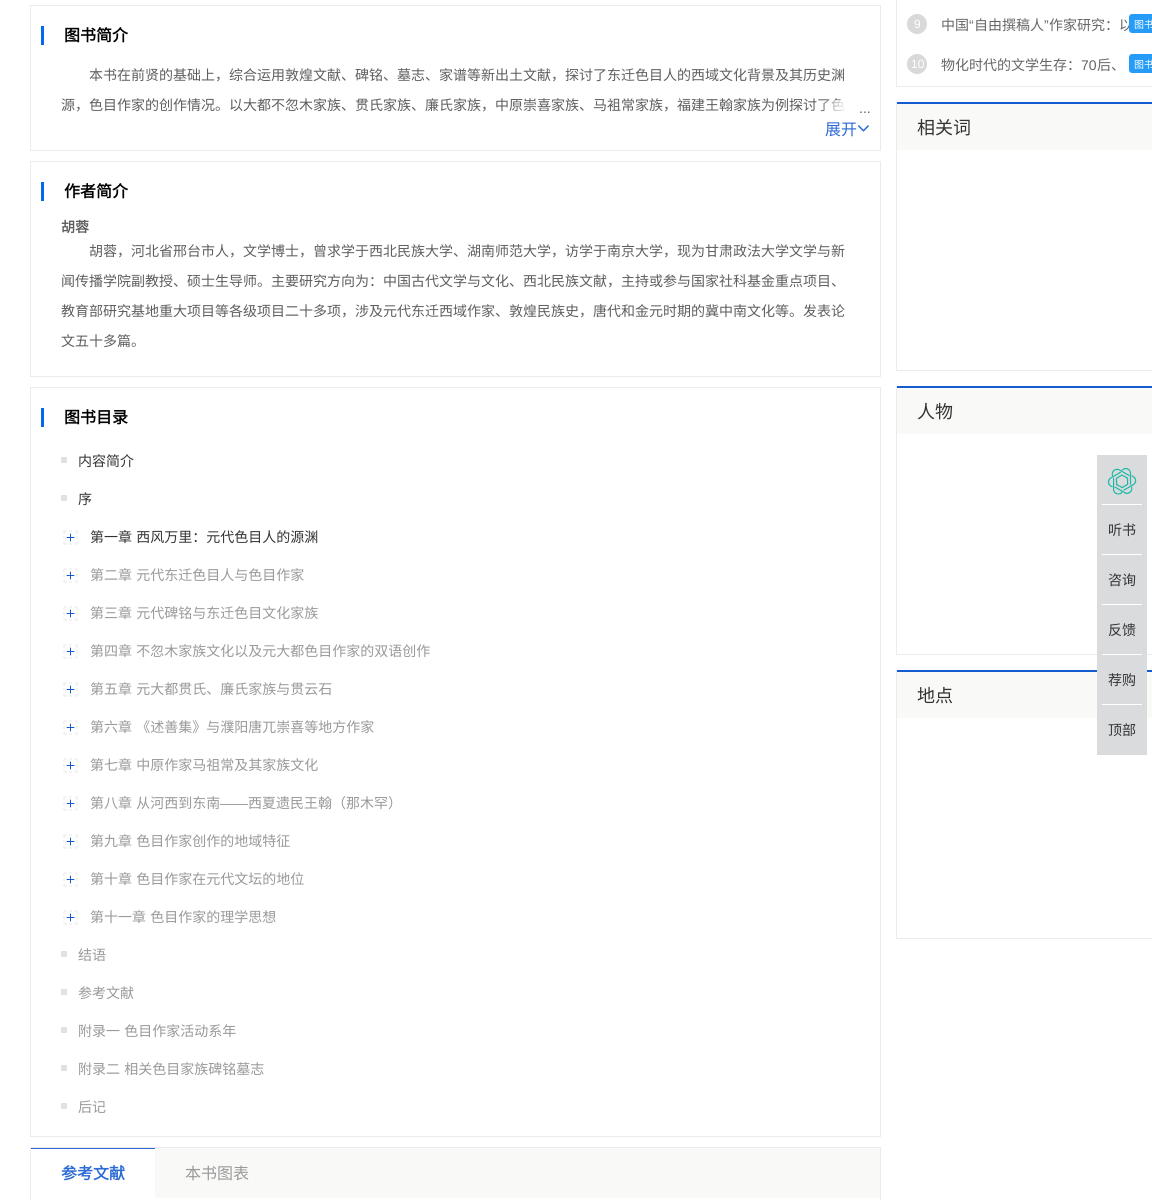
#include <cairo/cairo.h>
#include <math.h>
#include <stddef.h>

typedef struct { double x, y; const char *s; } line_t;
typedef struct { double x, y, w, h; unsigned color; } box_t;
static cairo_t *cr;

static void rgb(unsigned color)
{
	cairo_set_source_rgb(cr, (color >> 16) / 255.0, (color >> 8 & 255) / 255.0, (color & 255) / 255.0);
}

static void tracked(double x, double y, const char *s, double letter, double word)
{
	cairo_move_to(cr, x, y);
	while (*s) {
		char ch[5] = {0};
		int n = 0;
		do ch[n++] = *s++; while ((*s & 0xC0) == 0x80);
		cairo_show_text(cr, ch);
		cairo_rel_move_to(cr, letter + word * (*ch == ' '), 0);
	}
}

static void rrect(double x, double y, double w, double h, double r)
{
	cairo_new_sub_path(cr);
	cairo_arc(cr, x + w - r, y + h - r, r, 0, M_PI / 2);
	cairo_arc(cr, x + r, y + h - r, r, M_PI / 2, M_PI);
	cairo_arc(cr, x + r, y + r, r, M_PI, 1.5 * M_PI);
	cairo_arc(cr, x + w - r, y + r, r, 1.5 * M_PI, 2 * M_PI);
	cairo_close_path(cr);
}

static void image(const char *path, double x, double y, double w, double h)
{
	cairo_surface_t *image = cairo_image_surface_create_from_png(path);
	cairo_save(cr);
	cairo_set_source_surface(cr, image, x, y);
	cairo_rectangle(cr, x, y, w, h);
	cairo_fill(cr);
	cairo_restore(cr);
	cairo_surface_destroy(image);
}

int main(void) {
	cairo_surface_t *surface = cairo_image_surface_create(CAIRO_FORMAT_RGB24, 1152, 1200);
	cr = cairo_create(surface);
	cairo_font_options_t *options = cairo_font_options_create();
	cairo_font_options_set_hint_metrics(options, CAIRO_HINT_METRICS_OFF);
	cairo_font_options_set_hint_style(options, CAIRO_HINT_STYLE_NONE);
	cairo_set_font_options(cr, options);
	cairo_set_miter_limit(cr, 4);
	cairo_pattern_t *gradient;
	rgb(0xffffff);
	cairo_paint(cr);
	cairo_rectangle(cr, 30.5, 5.5, 850, 145);
	rgb(0xebebeb);
	cairo_set_line_width(cr, 1);
	cairo_stroke(cr);
	rgb(0x0468f0);
	cairo_rectangle(cr, 41, 26, 3, 19);
	cairo_fill(cr);
	image("img/1.png", 857, 125, 12, 7);
	cairo_rectangle(cr, 30.5, 161.5, 850, 215);
	rgb(0xebebeb);
	cairo_stroke(cr);
	rgb(0x0468f0);
	cairo_rectangle(cr, 41, 182, 3, 19);
	cairo_fill(cr);
	cairo_rectangle(cr, 30.5, 387.5, 850, 749);
	rgb(0xebebeb);
	cairo_stroke(cr);
	{
		static const box_t items[] = {
			{41, 408, 3, 19, 0x0468f0},
			{61, 457, 6, 6, 0xe1e1e1},
			{61, 495, 6, 6, 0xe1e1e1},
		};
		for (size_t i = 0; i < sizeof items / sizeof *items; i++) {
			rgb(items[i].color);
			cairo_rectangle(cr, items[i].x, items[i].y, items[i].w, items[i].h);
			cairo_fill(cr);
		}
	}
	image("img/2.png", 66, 533, 9, 9);
	cairo_new_path(cr);
	cairo_move_to(cr, 64, 531);
	cairo_line_to(cr, 67, 531);
	cairo_move_to(cr, 69, 531);
	cairo_line_to(cr, 72, 531);
	cairo_move_to(cr, 74.5, 531);
	cairo_line_to(cr, 77, 531);
	cairo_move_to(cr, 77, 531);
	cairo_line_to(cr, 77, 534);
	cairo_move_to(cr, 77, 536);
	cairo_line_to(cr, 77, 539);
	cairo_move_to(cr, 77, 541.5);
	cairo_line_to(cr, 77, 544);
	cairo_move_to(cr, 64, 544);
	cairo_line_to(cr, 67, 544);
	cairo_move_to(cr, 69, 544);
	cairo_line_to(cr, 72, 544);
	cairo_move_to(cr, 74.5, 544);
	cairo_line_to(cr, 77, 544);
	cairo_move_to(cr, 64, 531);
	cairo_line_to(cr, 64, 534);
	cairo_move_to(cr, 64, 536);
	cairo_line_to(cr, 64, 539);
	cairo_move_to(cr, 64, 541.5);
	cairo_line_to(cr, 64, 544);
	cairo_set_line_width(cr, 0.7);
	cairo_stroke(cr);
	image("img/2.png", 66, 571, 9, 9);
	cairo_new_path(cr);
	cairo_move_to(cr, 64, 569);
	cairo_line_to(cr, 67, 569);
	cairo_move_to(cr, 69, 569);
	cairo_line_to(cr, 72, 569);
	cairo_move_to(cr, 74.5, 569);
	cairo_line_to(cr, 77, 569);
	cairo_move_to(cr, 77, 569);
	cairo_line_to(cr, 77, 572);
	cairo_move_to(cr, 77, 574);
	cairo_line_to(cr, 77, 577);
	cairo_move_to(cr, 77, 579.5);
	cairo_line_to(cr, 77, 582);
	cairo_move_to(cr, 64, 582);
	cairo_line_to(cr, 67, 582);
	cairo_move_to(cr, 69, 582);
	cairo_line_to(cr, 72, 582);
	cairo_move_to(cr, 74.5, 582);
	cairo_line_to(cr, 77, 582);
	cairo_move_to(cr, 64, 569);
	cairo_line_to(cr, 64, 572);
	cairo_move_to(cr, 64, 574);
	cairo_line_to(cr, 64, 577);
	cairo_move_to(cr, 64, 579.5);
	cairo_line_to(cr, 64, 582);
	cairo_stroke(cr);
	image("img/2.png", 66, 609, 9, 9);
	cairo_new_path(cr);
	cairo_move_to(cr, 64, 607);
	cairo_line_to(cr, 67, 607);
	cairo_move_to(cr, 69, 607);
	cairo_line_to(cr, 72, 607);
	cairo_move_to(cr, 74.5, 607);
	cairo_line_to(cr, 77, 607);
	cairo_move_to(cr, 77, 607);
	cairo_line_to(cr, 77, 610);
	cairo_move_to(cr, 77, 612);
	cairo_line_to(cr, 77, 615);
	cairo_move_to(cr, 77, 617.5);
	cairo_line_to(cr, 77, 620);
	cairo_move_to(cr, 64, 620);
	cairo_line_to(cr, 67, 620);
	cairo_move_to(cr, 69, 620);
	cairo_line_to(cr, 72, 620);
	cairo_move_to(cr, 74.5, 620);
	cairo_line_to(cr, 77, 620);
	cairo_move_to(cr, 64, 607);
	cairo_line_to(cr, 64, 610);
	cairo_move_to(cr, 64, 612);
	cairo_line_to(cr, 64, 615);
	cairo_move_to(cr, 64, 617.5);
	cairo_line_to(cr, 64, 620);
	cairo_stroke(cr);
	image("img/2.png", 66, 647, 9, 9);
	cairo_new_path(cr);
	cairo_move_to(cr, 64, 645);
	cairo_line_to(cr, 67, 645);
	cairo_move_to(cr, 69, 645);
	cairo_line_to(cr, 72, 645);
	cairo_move_to(cr, 74.5, 645);
	cairo_line_to(cr, 77, 645);
	cairo_move_to(cr, 77, 645);
	cairo_line_to(cr, 77, 648);
	cairo_move_to(cr, 77, 650);
	cairo_line_to(cr, 77, 653);
	cairo_move_to(cr, 77, 655.5);
	cairo_line_to(cr, 77, 658);
	cairo_move_to(cr, 64, 658);
	cairo_line_to(cr, 67, 658);
	cairo_move_to(cr, 69, 658);
	cairo_line_to(cr, 72, 658);
	cairo_move_to(cr, 74.5, 658);
	cairo_line_to(cr, 77, 658);
	cairo_move_to(cr, 64, 645);
	cairo_line_to(cr, 64, 648);
	cairo_move_to(cr, 64, 650);
	cairo_line_to(cr, 64, 653);
	cairo_move_to(cr, 64, 655.5);
	cairo_line_to(cr, 64, 658);
	cairo_stroke(cr);
	image("img/2.png", 66, 685, 9, 9);
	cairo_new_path(cr);
	cairo_move_to(cr, 64, 683);
	cairo_line_to(cr, 67, 683);
	cairo_move_to(cr, 69, 683);
	cairo_line_to(cr, 72, 683);
	cairo_move_to(cr, 74.5, 683);
	cairo_line_to(cr, 77, 683);
	cairo_move_to(cr, 77, 683);
	cairo_line_to(cr, 77, 686);
	cairo_move_to(cr, 77, 688);
	cairo_line_to(cr, 77, 691);
	cairo_move_to(cr, 77, 693.5);
	cairo_line_to(cr, 77, 696);
	cairo_move_to(cr, 64, 696);
	cairo_line_to(cr, 67, 696);
	cairo_move_to(cr, 69, 696);
	cairo_line_to(cr, 72, 696);
	cairo_move_to(cr, 74.5, 696);
	cairo_line_to(cr, 77, 696);
	cairo_move_to(cr, 64, 683);
	cairo_line_to(cr, 64, 686);
	cairo_move_to(cr, 64, 688);
	cairo_line_to(cr, 64, 691);
	cairo_move_to(cr, 64, 693.5);
	cairo_line_to(cr, 64, 696);
	cairo_stroke(cr);
	image("img/2.png", 66, 723, 9, 9);
	cairo_new_path(cr);
	cairo_move_to(cr, 64, 721);
	cairo_line_to(cr, 67, 721);
	cairo_move_to(cr, 69, 721);
	cairo_line_to(cr, 72, 721);
	cairo_move_to(cr, 74.5, 721);
	cairo_line_to(cr, 77, 721);
	cairo_move_to(cr, 77, 721);
	cairo_line_to(cr, 77, 724);
	cairo_move_to(cr, 77, 726);
	cairo_line_to(cr, 77, 729);
	cairo_move_to(cr, 77, 731.5);
	cairo_line_to(cr, 77, 734);
	cairo_move_to(cr, 64, 734);
	cairo_line_to(cr, 67, 734);
	cairo_move_to(cr, 69, 734);
	cairo_line_to(cr, 72, 734);
	cairo_move_to(cr, 74.5, 734);
	cairo_line_to(cr, 77, 734);
	cairo_move_to(cr, 64, 721);
	cairo_line_to(cr, 64, 724);
	cairo_move_to(cr, 64, 726);
	cairo_line_to(cr, 64, 729);
	cairo_move_to(cr, 64, 731.5);
	cairo_line_to(cr, 64, 734);
	cairo_stroke(cr);
	image("img/2.png", 66, 761, 9, 9);
	cairo_new_path(cr);
	cairo_move_to(cr, 64, 759);
	cairo_line_to(cr, 67, 759);
	cairo_move_to(cr, 69, 759);
	cairo_line_to(cr, 72, 759);
	cairo_move_to(cr, 74.5, 759);
	cairo_line_to(cr, 77, 759);
	cairo_move_to(cr, 77, 759);
	cairo_line_to(cr, 77, 762);
	cairo_move_to(cr, 77, 764);
	cairo_line_to(cr, 77, 767);
	cairo_move_to(cr, 77, 769.5);
	cairo_line_to(cr, 77, 772);
	cairo_move_to(cr, 64, 772);
	cairo_line_to(cr, 67, 772);
	cairo_move_to(cr, 69, 772);
	cairo_line_to(cr, 72, 772);
	cairo_move_to(cr, 74.5, 772);
	cairo_line_to(cr, 77, 772);
	cairo_move_to(cr, 64, 759);
	cairo_line_to(cr, 64, 762);
	cairo_move_to(cr, 64, 764);
	cairo_line_to(cr, 64, 767);
	cairo_move_to(cr, 64, 769.5);
	cairo_line_to(cr, 64, 772);
	cairo_stroke(cr);
	image("img/2.png", 66, 799, 9, 9);
	cairo_new_path(cr);
	cairo_move_to(cr, 64, 797);
	cairo_line_to(cr, 67, 797);
	cairo_move_to(cr, 69, 797);
	cairo_line_to(cr, 72, 797);
	cairo_move_to(cr, 74.5, 797);
	cairo_line_to(cr, 77, 797);
	cairo_move_to(cr, 77, 797);
	cairo_line_to(cr, 77, 800);
	cairo_move_to(cr, 77, 802);
	cairo_line_to(cr, 77, 805);
	cairo_move_to(cr, 77, 807.5);
	cairo_line_to(cr, 77, 810);
	cairo_move_to(cr, 64, 810);
	cairo_line_to(cr, 67, 810);
	cairo_move_to(cr, 69, 810);
	cairo_line_to(cr, 72, 810);
	cairo_move_to(cr, 74.5, 810);
	cairo_line_to(cr, 77, 810);
	cairo_move_to(cr, 64, 797);
	cairo_line_to(cr, 64, 800);
	cairo_move_to(cr, 64, 802);
	cairo_line_to(cr, 64, 805);
	cairo_move_to(cr, 64, 807.5);
	cairo_line_to(cr, 64, 810);
	cairo_stroke(cr);
	image("img/2.png", 66, 837, 9, 9);
	cairo_new_path(cr);
	cairo_move_to(cr, 64, 835);
	cairo_line_to(cr, 67, 835);
	cairo_move_to(cr, 69, 835);
	cairo_line_to(cr, 72, 835);
	cairo_move_to(cr, 74.5, 835);
	cairo_line_to(cr, 77, 835);
	cairo_move_to(cr, 77, 835);
	cairo_line_to(cr, 77, 838);
	cairo_move_to(cr, 77, 840);
	cairo_line_to(cr, 77, 843);
	cairo_move_to(cr, 77, 845.5);
	cairo_line_to(cr, 77, 848);
	cairo_move_to(cr, 64, 848);
	cairo_line_to(cr, 67, 848);
	cairo_move_to(cr, 69, 848);
	cairo_line_to(cr, 72, 848);
	cairo_move_to(cr, 74.5, 848);
	cairo_line_to(cr, 77, 848);
	cairo_move_to(cr, 64, 835);
	cairo_line_to(cr, 64, 838);
	cairo_move_to(cr, 64, 840);
	cairo_line_to(cr, 64, 843);
	cairo_move_to(cr, 64, 845.5);
	cairo_line_to(cr, 64, 848);
	cairo_stroke(cr);
	image("img/2.png", 66, 875, 9, 9);
	cairo_new_path(cr);
	cairo_move_to(cr, 64, 873);
	cairo_line_to(cr, 67, 873);
	cairo_move_to(cr, 69, 873);
	cairo_line_to(cr, 72, 873);
	cairo_move_to(cr, 74.5, 873);
	cairo_line_to(cr, 77, 873);
	cairo_move_to(cr, 77, 873);
	cairo_line_to(cr, 77, 876);
	cairo_move_to(cr, 77, 878);
	cairo_line_to(cr, 77, 881);
	cairo_move_to(cr, 77, 883.5);
	cairo_line_to(cr, 77, 886);
	cairo_move_to(cr, 64, 886);
	cairo_line_to(cr, 67, 886);
	cairo_move_to(cr, 69, 886);
	cairo_line_to(cr, 72, 886);
	cairo_move_to(cr, 74.5, 886);
	cairo_line_to(cr, 77, 886);
	cairo_move_to(cr, 64, 873);
	cairo_line_to(cr, 64, 876);
	cairo_move_to(cr, 64, 878);
	cairo_line_to(cr, 64, 881);
	cairo_move_to(cr, 64, 883.5);
	cairo_line_to(cr, 64, 886);
	cairo_stroke(cr);
	image("img/2.png", 66, 913, 9, 9);
	cairo_new_path(cr);
	cairo_move_to(cr, 64, 911);
	cairo_line_to(cr, 67, 911);
	cairo_move_to(cr, 69, 911);
	cairo_line_to(cr, 72, 911);
	cairo_move_to(cr, 74.5, 911);
	cairo_line_to(cr, 77, 911);
	cairo_move_to(cr, 77, 911);
	cairo_line_to(cr, 77, 914);
	cairo_move_to(cr, 77, 916);
	cairo_line_to(cr, 77, 919);
	cairo_move_to(cr, 77, 921.5);
	cairo_line_to(cr, 77, 924);
	cairo_move_to(cr, 64, 924);
	cairo_line_to(cr, 67, 924);
	cairo_move_to(cr, 69, 924);
	cairo_line_to(cr, 72, 924);
	cairo_move_to(cr, 74.5, 924);
	cairo_line_to(cr, 77, 924);
	cairo_move_to(cr, 64, 911);
	cairo_line_to(cr, 64, 914);
	cairo_move_to(cr, 64, 916);
	cairo_line_to(cr, 64, 919);
	cairo_move_to(cr, 64, 921.5);
	cairo_line_to(cr, 64, 924);
	cairo_stroke(cr);
	{
		static const box_t items[] = {
			{61, 951, 6, 6, 0xe1e1e1},
			{61, 989, 6, 6, 0xe1e1e1},
			{61, 1027, 6, 6, 0xe1e1e1},
			{61, 1065, 6, 6, 0xe1e1e1},
			{61, 1103, 6, 6, 0xe1e1e1},
		};
		for (size_t i = 0; i < sizeof items / sizeof *items; i++) {
			rgb(items[i].color);
			cairo_rectangle(cr, items[i].x, items[i].y, items[i].w, items[i].h);
			cairo_fill(cr);
		}
	}
	cairo_rectangle(cr, 30.5, 1147.5, 850, 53);
	rgb(0xebebeb);
	cairo_set_line_width(cr, 1);
	cairo_stroke(cr);
	{
		static const box_t items[] = {
			{155, 1148, 725, 50, 0xf9f9f8},
			{31, 1148, 124, 1, 0x2c6bd5},
			{896, 86, 256, 1, 0xebebeb},
			{896, 0, 1, 87, 0xebebeb},
		};
		for (size_t i = 0; i < sizeof items / sizeof *items; i++) {
			rgb(items[i].color);
			cairo_rectangle(cr, items[i].x, items[i].y, items[i].w, items[i].h);
			cairo_fill(cr);
		}
	}
	rgb(0xd9d9d9);
	cairo_arc(cr, 917, 24, 10, 0, 2 * M_PI);
	cairo_fill(cr);
	cairo_arc(cr, 917, 64, 10, 0, 2 * M_PI);
	cairo_fill(cr);
	rgb(0x259cf8);
	rrect(1129, 54, 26, 19, 3);
	cairo_fill(cr);
	{
		static const box_t items[] = {
			{896, 370, 256, 1, 0xebebeb},
			{896, 102, 1, 269, 0xebebeb},
			{897, 104, 255, 46, 0xf9f9f8},
			{897, 102, 255, 2, 0x155bd0},
			{896, 654, 256, 1, 0xebebeb},
			{896, 386, 1, 269, 0xebebeb},
			{897, 388, 255, 46, 0xf9f9f8},
			{897, 386, 255, 2, 0x155bd0},
			{896, 938, 256, 1, 0xebebeb},
			{896, 670, 1, 269, 0xebebeb},
			{897, 672, 255, 46, 0xf9f9f8},
			{897, 670, 255, 2, 0x155bd0},
			{1097, 455, 50, 300, 0xdadbdd},
			{1102, 504, 40, 1, 0xffffff},
		};
		for (size_t i = 0; i < sizeof items / sizeof *items; i++) {
			rgb(items[i].color);
			cairo_rectangle(cr, items[i].x, items[i].y, items[i].w, items[i].h);
			cairo_fill(cr);
		}
	}
	image("img/3.png", 1107, 467, 30, 28);
	{
		static const box_t items[] = {
			{1102, 554, 40, 1, 0xffffff},
			{1102, 604, 40, 1, 0xffffff},
			{1102, 654, 40, 1, 0xffffff},
			{1102, 704, 40, 1, 0xffffff},
		};
		for (size_t i = 0; i < sizeof items / sizeof *items; i++) {
			rgb(items[i].color);
			cairo_rectangle(cr, items[i].x, items[i].y, items[i].w, items[i].h);
			cairo_fill(cr);
		}
	}
	cairo_select_font_face(cr, "Noto Sans CJK SC", CAIRO_FONT_SLANT_NORMAL, CAIRO_FONT_WEIGHT_BOLD);
	cairo_set_font_size(cr, 16);
	rgb(0x000000);
	cairo_move_to(cr, 64, 41);
	cairo_show_text(cr, "图书简介");
	cairo_select_font_face(cr, "Noto Sans CJK SC", CAIRO_FONT_SLANT_NORMAL, CAIRO_FONT_WEIGHT_NORMAL);
	cairo_set_font_size(cr, 14);
	rgb(0x5e5e5e);
	cairo_move_to(cr, 89, 80);
	cairo_show_text(cr, "本书在前贤的基础上，综合运用敦煌文献、碑铭、墓志、家谱等新出土文献，探讨了东迁色目人的西域文化背景及其历史渊");
	cairo_move_to(cr, 61, 110);
	cairo_show_text(cr, "源，色目作家的创作情况。以大都不忽木家族、贯氏家族、廉氏家族，中原崇喜家族、马袓常家族，福建王翰家族为例探讨了色");
	gradient = cairo_pattern_create_linear(819, 108, 870, 108);
	cairo_pattern_add_color_stop_rgba(gradient, 0, 1, 1, 1, 0);
	cairo_pattern_add_color_stop_rgba(gradient, 0.55, 1, 1, 1, 1);
	cairo_set_source(cr, gradient);
	cairo_pattern_destroy(gradient);
	cairo_rectangle(cr, 820, 100, 25, 11);
	cairo_fill(cr);
	cairo_select_font_face(cr, "Liberation Sans", CAIRO_FONT_SLANT_NORMAL, CAIRO_FONT_WEIGHT_NORMAL);
	rgb(0x5e5e5e);
	cairo_move_to(cr, 859, 113);
	cairo_show_text(cr, "...");
	cairo_select_font_face(cr, "Noto Sans CJK SC", CAIRO_FONT_SLANT_NORMAL, CAIRO_FONT_WEIGHT_NORMAL);
	cairo_set_font_size(cr, 16);
	rgb(0x2c6bd5);
	cairo_move_to(cr, 825, 135);
	cairo_show_text(cr, "展开");
	cairo_select_font_face(cr, "Noto Sans CJK SC", CAIRO_FONT_SLANT_NORMAL, CAIRO_FONT_WEIGHT_BOLD);
	rgb(0x000000);
	cairo_move_to(cr, 64, 197);
	cairo_show_text(cr, "作者简介");
	cairo_set_font_size(cr, 14);
	rgb(0x5e5e5e);
	cairo_move_to(cr, 61, 232);
	cairo_show_text(cr, "胡蓉");
	cairo_select_font_face(cr, "Noto Sans CJK SC", CAIRO_FONT_SLANT_NORMAL, CAIRO_FONT_WEIGHT_NORMAL);
	{
		static const line_t items[] = {
			{89, 256, "胡蓉，河北省邢台市人，文学博士，曾求学于西北民族大学、湖南师范大学，访学于南京大学，现为甘肃政法大学文学与新"},
			{61, 286, "闻传播学院副教授、硕士生导师。主要研究方向为：中国古代文学与文化、西北民族文献，主持或参与国家社科基金重点项目、"},
			{61, 316, "教育部研究基地重大项目等各级项目二十多项，涉及元代东迁西域作家、敦煌民族史，唐代和金元时期的冀中南文化等。发表论"},
			{61, 346, "文五十多篇。"},
		};
		for (size_t i = 0; i < sizeof items / sizeof *items; i++) {
			cairo_move_to(cr, items[i].x, items[i].y);
			cairo_show_text(cr, items[i].s);
		}
	}
	cairo_select_font_face(cr, "Noto Sans CJK SC", CAIRO_FONT_SLANT_NORMAL, CAIRO_FONT_WEIGHT_BOLD);
	cairo_set_font_size(cr, 16);
	rgb(0x000000);
	cairo_move_to(cr, 64, 423);
	cairo_show_text(cr, "图书目录");
	cairo_select_font_face(cr, "Noto Sans CJK SC", CAIRO_FONT_SLANT_NORMAL, CAIRO_FONT_WEIGHT_NORMAL);
	cairo_set_font_size(cr, 14);
	rgb(0x333333);
	cairo_move_to(cr, 78, 466);
	cairo_show_text(cr, "内容简介");
	cairo_move_to(cr, 78, 504);
	cairo_show_text(cr, "序");
	tracked(90, 542, "第一章 西风万里：元代色目人的源渊", 0, 1);
	rgb(0x999999);
	{
		static const line_t items[] = {
			{90, 580, "第二章 元代东迁色目人与色目作家"},
			{90, 618, "第三章 元代碑铭与东迁色目文化家族"},
			{90, 656, "第四章 不忽木家族文化以及元大都色目作家的双语创作"},
			{90, 694, "第五章 元大都贯氏、廉氏家族与贯云石"},
			{90, 732, "第六章 《述善集》与濮阳唐兀崇喜等地方作家"},
			{90, 770, "第七章 中原作家马祖常及其家族文化"},
			{90, 808, "第八章 从河西到东南"},
		};
		for (size_t i = 0; i < sizeof items / sizeof *items; i++) {
			tracked(items[i].x, items[i].y, items[i].s, 0, 1);
		}
	}
	cairo_select_font_face(cr, "Liberation Sans", CAIRO_FONT_SLANT_NORMAL, CAIRO_FONT_WEIGHT_NORMAL);
	cairo_move_to(cr, 220, 808);
	cairo_show_text(cr, "——");
	cairo_select_font_face(cr, "Noto Sans CJK SC", CAIRO_FONT_SLANT_NORMAL, CAIRO_FONT_WEIGHT_NORMAL);
	cairo_move_to(cr, 248, 808);
	cairo_show_text(cr, "西夏遗民王翰（那木罕）");
	{
		static const line_t items[] = {
			{90, 846, "第九章 色目作家创作的地域特征"},
			{90, 884, "第十章 色目作家在元代文坛的地位"},
			{90, 922, "第十一章 色目作家的理学思想"},
		};
		for (size_t i = 0; i < sizeof items / sizeof *items; i++) {
			tracked(items[i].x, items[i].y, items[i].s, 0, 1);
		}
	}
	cairo_move_to(cr, 78, 960);
	cairo_show_text(cr, "结语");
	cairo_move_to(cr, 78, 998);
	cairo_show_text(cr, "参考文献");
	tracked(78, 1036, "附录一 色目作家活动系年", 0, 1);
	tracked(78, 1074, "附录二 相关色目家族碑铭墓志", 0, 1);
	cairo_move_to(cr, 78, 1112);
	cairo_show_text(cr, "后记");
	cairo_select_font_face(cr, "Noto Sans CJK SC", CAIRO_FONT_SLANT_NORMAL, CAIRO_FONT_WEIGHT_BOLD);
	cairo_set_font_size(cr, 16);
	rgb(0x2c6bd5);
	cairo_move_to(cr, 61, 1179);
	cairo_show_text(cr, "参考文献");
	cairo_select_font_face(cr, "Noto Sans CJK SC", CAIRO_FONT_SLANT_NORMAL, CAIRO_FONT_WEIGHT_NORMAL);
	rgb(0x999999);
	cairo_move_to(cr, 185, 1179);
	cairo_show_text(cr, "本书图表");
	cairo_select_font_face(cr, "Liberation Sans", CAIRO_FONT_SLANT_NORMAL, CAIRO_FONT_WEIGHT_NORMAL);
	cairo_set_font_size(cr, 12);
	rgb(0xffffff);
	cairo_move_to(cr, 914, 28);
	cairo_show_text(cr, "9");
	cairo_select_font_face(cr, "Noto Sans CJK SC", CAIRO_FONT_SLANT_NORMAL, CAIRO_FONT_WEIGHT_NORMAL);
	cairo_set_font_size(cr, 14);
	rgb(0x666666);
	cairo_move_to(cr, 941, 30);
	cairo_show_text(cr, "中国");
	cairo_select_font_face(cr, "Liberation Sans", CAIRO_FONT_SLANT_NORMAL, CAIRO_FONT_WEIGHT_NORMAL);
	cairo_move_to(cr, 969, 30);
	cairo_show_text(cr, "“");
	cairo_select_font_face(cr, "Noto Sans CJK SC", CAIRO_FONT_SLANT_NORMAL, CAIRO_FONT_WEIGHT_NORMAL);
	cairo_move_to(cr, 974, 30);
	cairo_show_text(cr, "自由撰稿人");
	cairo_select_font_face(cr, "Liberation Sans", CAIRO_FONT_SLANT_NORMAL, CAIRO_FONT_WEIGHT_NORMAL);
	cairo_move_to(cr, 1044, 30);
	cairo_show_text(cr, "”");
	cairo_select_font_face(cr, "Noto Sans CJK SC", CAIRO_FONT_SLANT_NORMAL, CAIRO_FONT_WEIGHT_NORMAL);
	cairo_move_to(cr, 1049, 30);
	cairo_show_text(cr, "作家研究：以");
	rgb(0x259cf8);
	rrect(1129, 14, 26, 19, 3);
	cairo_fill(cr);
	cairo_set_font_size(cr, 10);
	rgb(0xffffff);
	cairo_move_to(cr, 1134, 28);
	cairo_show_text(cr, "图书");
	cairo_select_font_face(cr, "Liberation Sans", CAIRO_FONT_SLANT_NORMAL, CAIRO_FONT_WEIGHT_NORMAL);
	cairo_set_font_size(cr, 12);
	cairo_move_to(cr, 911, 68);
	cairo_show_text(cr, "10");
	cairo_select_font_face(cr, "Noto Sans CJK SC", CAIRO_FONT_SLANT_NORMAL, CAIRO_FONT_WEIGHT_NORMAL);
	cairo_set_font_size(cr, 14);
	rgb(0x666666);
	cairo_move_to(cr, 941, 70);
	cairo_show_text(cr, "物化时代的文学生存：");
	cairo_select_font_face(cr, "Liberation Sans", CAIRO_FONT_SLANT_NORMAL, CAIRO_FONT_WEIGHT_NORMAL);
	cairo_move_to(cr, 1081, 70);
	cairo_show_text(cr, "70");
	cairo_select_font_face(cr, "Noto Sans CJK SC", CAIRO_FONT_SLANT_NORMAL, CAIRO_FONT_WEIGHT_NORMAL);
	cairo_move_to(cr, 1097, 70);
	cairo_show_text(cr, "后、");
	cairo_set_font_size(cr, 10);
	rgb(0xffffff);
	cairo_move_to(cr, 1134, 68);
	cairo_show_text(cr, "图书");
	cairo_set_font_size(cr, 18);
	rgb(0x333333);
	{
		static const line_t items[] = {
			{917, 134, "相关词"},
			{917, 418, "人物"},
			{917, 702, "地点"},
		};
		for (size_t i = 0; i < sizeof items / sizeof *items; i++) {
			cairo_move_to(cr, items[i].x, items[i].y);
			cairo_show_text(cr, items[i].s);
		}
	}
	cairo_set_font_size(cr, 14);
	{
		static const line_t items[] = {
			{1108, 535, "听书"},
			{1108, 585, "咨询"},
			{1108, 635, "反馈"},
			{1108, 685, "荐购"},
			{1108, 735, "顶部"},
		};
		for (size_t i = 0; i < sizeof items / sizeof *items; i++) {
			cairo_move_to(cr, items[i].x, items[i].y);
			cairo_show_text(cr, items[i].s);
		}
	}
	cairo_surface_write_to_png(surface, "page.png");
	cairo_font_options_destroy(options);
	cairo_destroy(cr);
	cairo_surface_destroy(surface);
	return 0;
}
